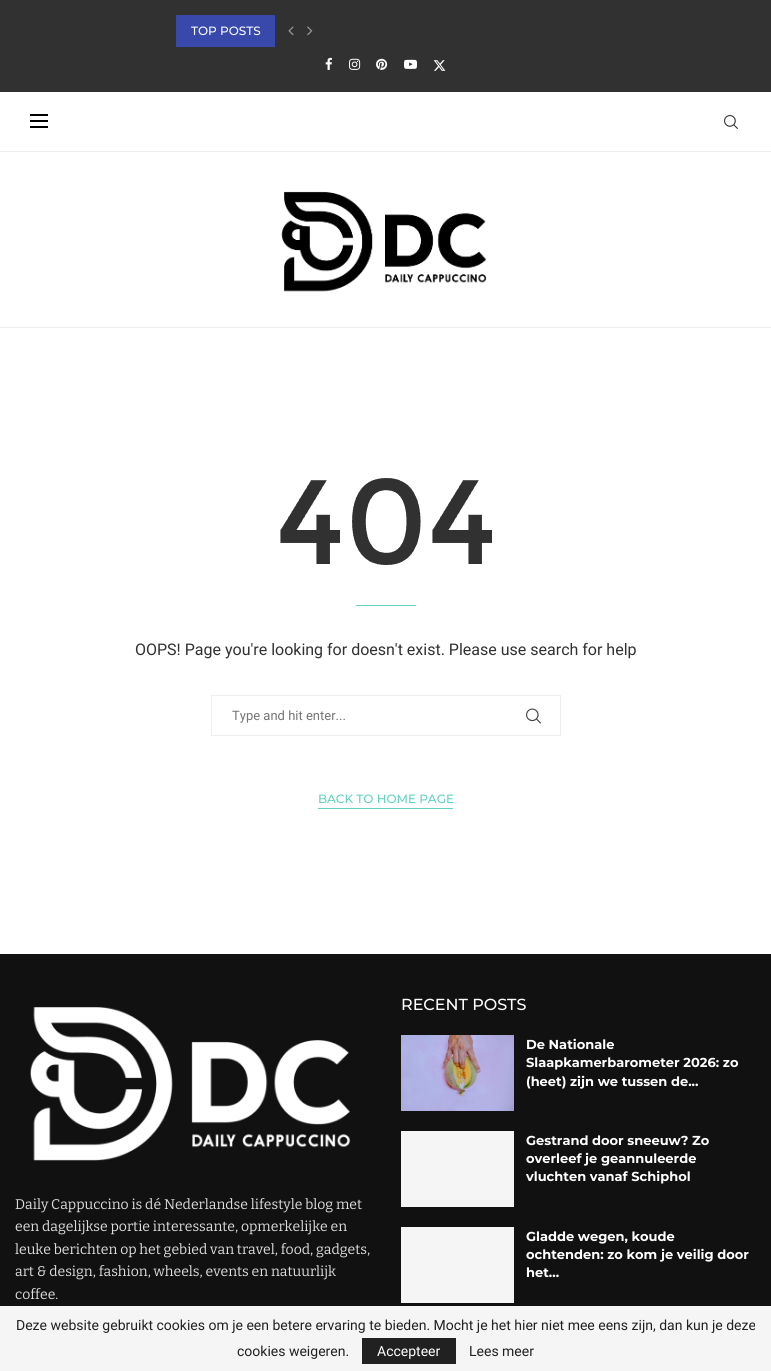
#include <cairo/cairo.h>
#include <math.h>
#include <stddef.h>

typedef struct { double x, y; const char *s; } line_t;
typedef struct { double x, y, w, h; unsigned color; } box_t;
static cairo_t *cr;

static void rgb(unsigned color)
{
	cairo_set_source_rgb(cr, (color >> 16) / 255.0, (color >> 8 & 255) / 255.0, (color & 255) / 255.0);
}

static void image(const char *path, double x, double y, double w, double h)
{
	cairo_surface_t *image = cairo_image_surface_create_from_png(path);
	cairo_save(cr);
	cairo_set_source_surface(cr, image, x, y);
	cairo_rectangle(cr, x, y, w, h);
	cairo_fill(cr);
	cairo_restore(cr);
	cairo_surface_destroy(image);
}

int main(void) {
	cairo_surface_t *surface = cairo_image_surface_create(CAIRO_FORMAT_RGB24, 771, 1371);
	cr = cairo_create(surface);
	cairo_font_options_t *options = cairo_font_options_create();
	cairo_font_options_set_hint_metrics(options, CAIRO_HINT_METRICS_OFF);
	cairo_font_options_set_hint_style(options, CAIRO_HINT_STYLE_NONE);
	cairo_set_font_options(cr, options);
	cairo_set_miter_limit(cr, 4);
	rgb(0xffffff);
	cairo_paint(cr);
	rgb(0x313131);
	cairo_rectangle(cr, 0, 0, 771, 92);
	cairo_fill(cr);
	rgb(0x3949ab);
	cairo_rectangle(cr, 176, 15, 99, 32);
	cairo_fill(cr);
	image("img/1.png", 288, 26, 6, 10);
	image("img/2.png", 307, 26, 6, 10);
	image("img/3.png", 325, 57, 7, 13);
	image("img/4.png", 349, 58, 12, 12);
	image("img/5.png", 376, 58, 12, 12);
	image("img/6.png", 404, 59, 13, 10);
	image("img/7.png", 433, 60, 13, 11);
	{
		static const box_t items[] = {
			{0, 151, 771, 1, 0xececec},
			{30, 114, 18, 2, 0x000000},
			{30, 120, 18, 2, 0x000000},
			{30, 126, 18, 2, 0x000000},
		};
		for (size_t i = 0; i < sizeof items / sizeof *items; i++) {
			rgb(items[i].color);
			cairo_rectangle(cr, items[i].x, items[i].y, items[i].w, items[i].h);
			cairo_fill(cr);
		}
	}
	image("img/8.png", 724, 115, 14, 14);
	rgb(0xeeeeee);
	cairo_rectangle(cr, 0, 327, 771, 1);
	cairo_fill(cr);
	image("img/9.png", 281, 191, 206, 101);
	image("img/10.png", 280, 478, 212, 87);
	rgb(0x62d1be);
	cairo_rectangle(cr, 356, 605, 60, 1);
	cairo_fill(cr);
	cairo_rectangle(cr, 211.5, 695.5, 349, 40);
	rgb(0xeeeeee);
	cairo_set_line_width(cr, 1);
	cairo_stroke(cr);
	image("img/11.png", 526, 708, 15, 16);
	rgb(0x62d1be);
	cairo_rectangle(cr, 318, 808, 135, 1);
	cairo_fill(cr);
	rgb(0x111111);
	cairo_rectangle(cr, 0, 954, 771, 352);
	cairo_fill(cr);
	image("img/12.png", 30, 1007, 321, 154);
	image("img/13.png", 401, 1035, 113, 76);
	{
		static const box_t items[] = {
			{401, 1131, 113, 76, 0xf5f5f5},
			{401, 1227, 113, 76, 0xf5f5f5},
			{0, 1306, 771, 65, 0xf5f5f5},
			{362, 1338, 94, 26, 0x212121},
		};
		for (size_t i = 0; i < sizeof items / sizeof *items; i++) {
			rgb(items[i].color);
			cairo_rectangle(cr, items[i].x, items[i].y, items[i].w, items[i].h);
			cairo_fill(cr);
		}
	}
	cairo_select_font_face(cr, "Montserrat Medium", CAIRO_FONT_SLANT_NORMAL, CAIRO_FONT_WEIGHT_NORMAL);
	cairo_set_font_size(cr, 12);
	rgb(0xffffff);
	cairo_move_to(cr, 191, 35);
	cairo_show_text(cr, "TOP POSTS");
	cairo_select_font_face(cr, "Roboto", CAIRO_FONT_SLANT_NORMAL, CAIRO_FONT_WEIGHT_NORMAL);
	cairo_set_font_size(cr, 16);
	rgb(0x313131);
	cairo_move_to(cr, 135, 655);
	cairo_show_text(cr, "OOPS! Page you're looking for doesn't exist. Please use search for help");
	cairo_set_font_size(cr, 13);
	rgb(0x757575);
	cairo_move_to(cr, 232, 720);
	cairo_show_text(cr, "Type and hit enter...");
	cairo_select_font_face(cr, "Montserrat Medium", CAIRO_FONT_SLANT_NORMAL, CAIRO_FONT_WEIGHT_NORMAL);
	cairo_set_font_size(cr, 12);
	rgb(0x62d1be);
	cairo_move_to(cr, 318, 803);
	cairo_show_text(cr, "BACK TO HOME PAGE");
	cairo_select_font_face(cr, "Bitter", CAIRO_FONT_SLANT_NORMAL, CAIRO_FONT_WEIGHT_NORMAL);
	cairo_set_font_size(cr, 14);
	rgb(0xdddddd);
	{
		static const line_t items[] = {
			{15, 1209, "Daily Cappuccino is dé Nederlandse lifestyle blog met"},
			{15, 1231, "een dagelijkse portie interessante, opmerkelijke en"},
			{15, 1254, "leuke berichten op het gebied van travel, food, gadgets,"},
			{15, 1276, "art & design, fashion, wheels, events en natuurlijk"},
			{15, 1299, "coffee."},
		};
		for (size_t i = 0; i < sizeof items / sizeof *items; i++) {
			cairo_move_to(cr, items[i].x, items[i].y);
			cairo_show_text(cr, items[i].s);
		}
	}
	cairo_select_font_face(cr, "Montserrat Medium", CAIRO_FONT_SLANT_NORMAL, CAIRO_FONT_WEIGHT_NORMAL);
	cairo_set_font_size(cr, 16);
	rgb(0xffffff);
	cairo_move_to(cr, 401, 1010);
	cairo_show_text(cr, "RECENT POSTS");
	cairo_select_font_face(cr, "Montserrat", CAIRO_FONT_SLANT_NORMAL, CAIRO_FONT_WEIGHT_BOLD);
	cairo_set_font_size(cr, 13);
	{
		static const line_t items[] = {
			{526, 1049, "De Nationale"},
			{526, 1067, "Slaapkamerbarometer 2026: zo"},
			{526, 1086, "(heet) zijn we tussen de..."},
			{526, 1145, "Gestrand door sneeuw? Zo"},
			{526, 1163, "overleef je geannuleerde"},
			{526, 1181, "vluchten vanaf Schiphol"},
			{526, 1241, "Gladde wegen, koude"},
			{526, 1259, "ochtenden: zo kom je veilig door"},
			{526, 1277, "het..."},
		};
		for (size_t i = 0; i < sizeof items / sizeof *items; i++) {
			cairo_move_to(cr, items[i].x, items[i].y);
			cairo_show_text(cr, items[i].s);
		}
	}
	cairo_select_font_face(cr, "Roboto", CAIRO_FONT_SLANT_NORMAL, CAIRO_FONT_WEIGHT_NORMAL);
	cairo_set_font_size(cr, 14);
	rgb(0x212121);
	cairo_move_to(cr, 16, 1330);
	cairo_show_text(cr, "Deze website gebruikt cookies om je een betere ervaring te bieden. Mocht je het hier niet mee eens zijn, dan kun je deze");
	cairo_move_to(cr, 237, 1356);
	cairo_show_text(cr, "cookies weigeren.");
	rgb(0xffffff);
	cairo_move_to(cr, 377, 1356);
	cairo_show_text(cr, "Accepteer");
	rgb(0x212121);
	cairo_move_to(cr, 469, 1356);
	cairo_show_text(cr, "Lees meer");
	cairo_surface_write_to_png(surface, "page.png");
	cairo_font_options_destroy(options);
	cairo_destroy(cr);
	cairo_surface_destroy(surface);
	return 0;
}
